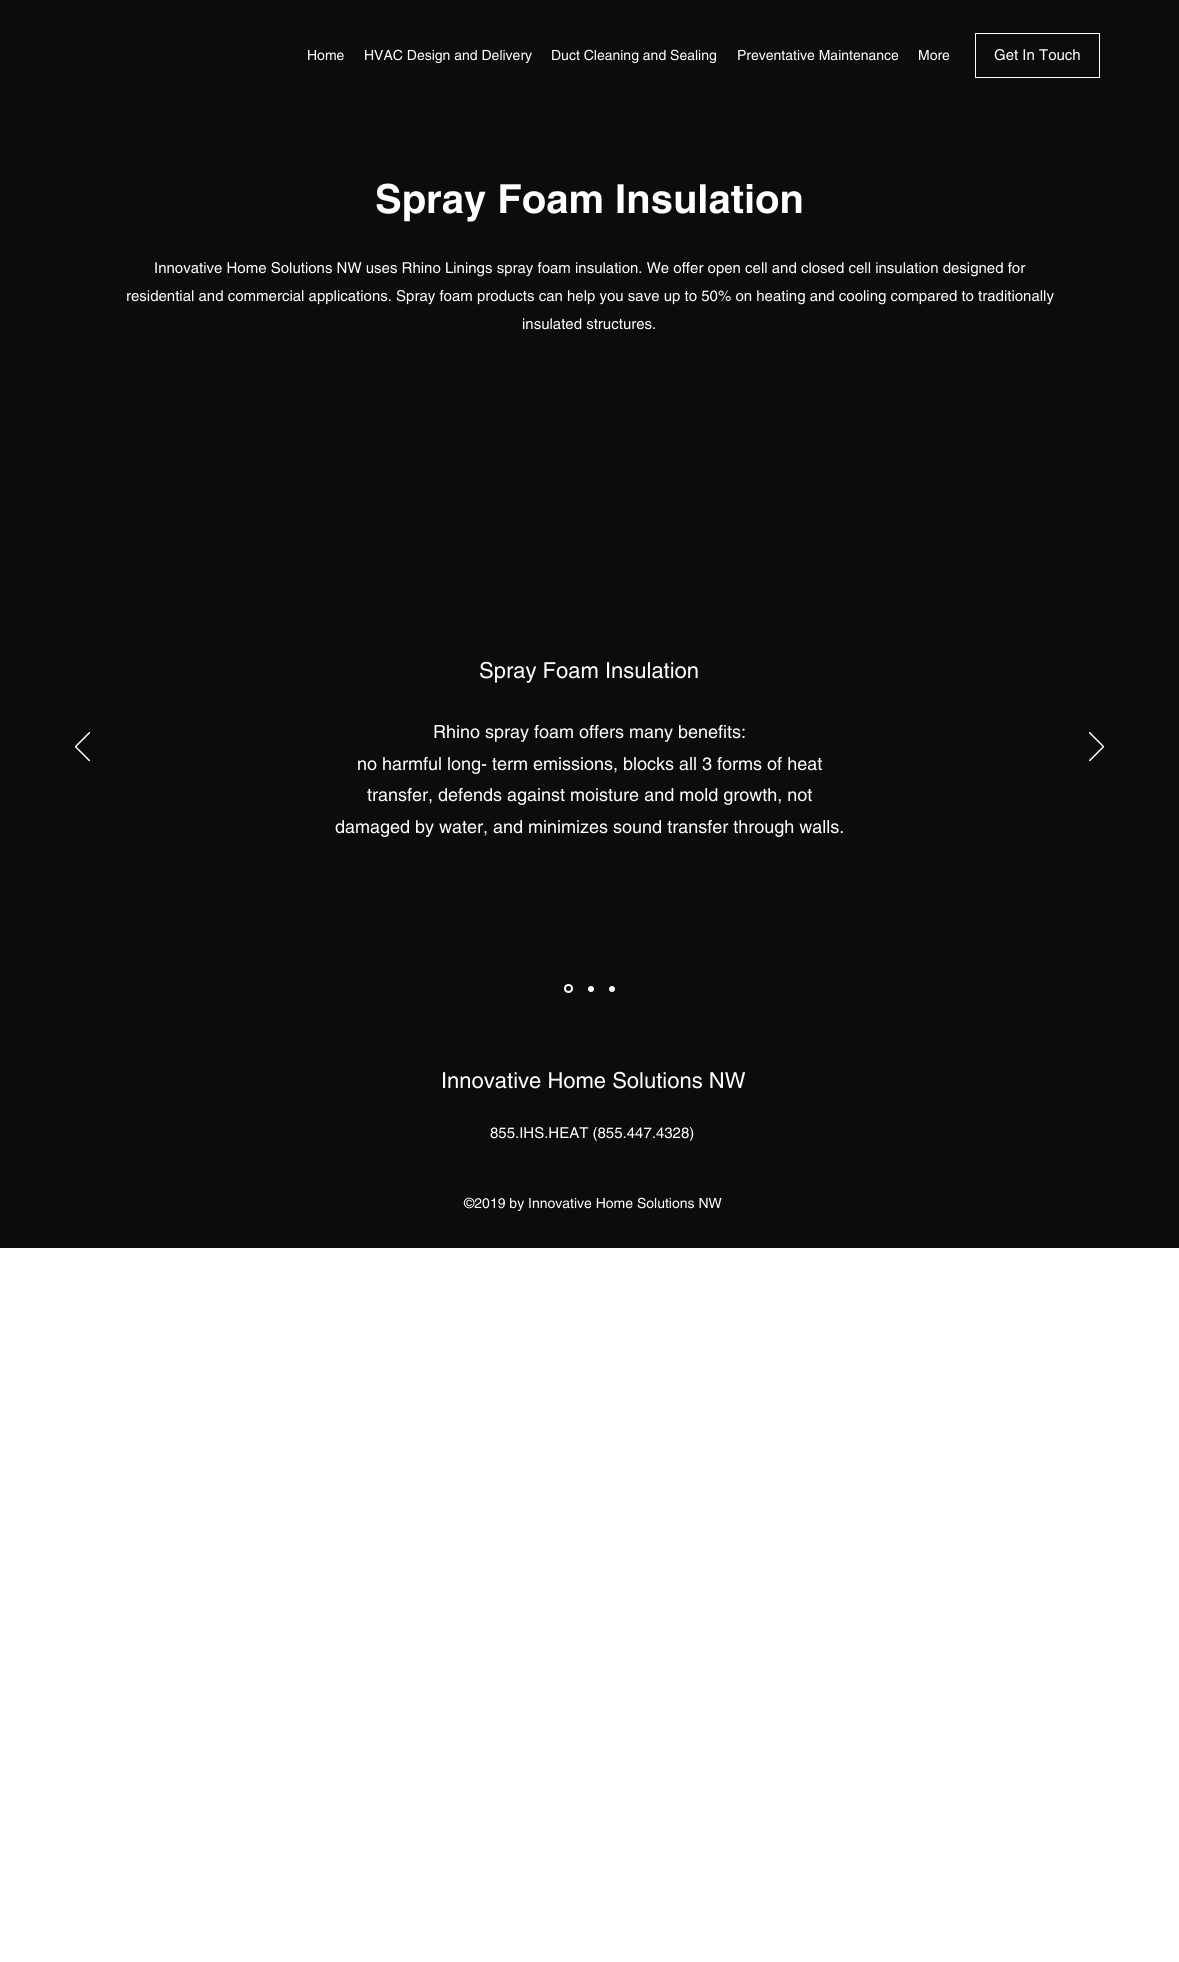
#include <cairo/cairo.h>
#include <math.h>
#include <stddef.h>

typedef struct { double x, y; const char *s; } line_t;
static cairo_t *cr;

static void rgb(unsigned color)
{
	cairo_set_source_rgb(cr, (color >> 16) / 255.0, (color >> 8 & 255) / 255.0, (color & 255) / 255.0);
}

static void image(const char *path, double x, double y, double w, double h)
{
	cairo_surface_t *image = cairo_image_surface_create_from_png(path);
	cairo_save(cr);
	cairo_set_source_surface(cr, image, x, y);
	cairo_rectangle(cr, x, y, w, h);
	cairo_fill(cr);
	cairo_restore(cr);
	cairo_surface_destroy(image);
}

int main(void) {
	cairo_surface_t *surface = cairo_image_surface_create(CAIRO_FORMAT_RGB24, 1179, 1962);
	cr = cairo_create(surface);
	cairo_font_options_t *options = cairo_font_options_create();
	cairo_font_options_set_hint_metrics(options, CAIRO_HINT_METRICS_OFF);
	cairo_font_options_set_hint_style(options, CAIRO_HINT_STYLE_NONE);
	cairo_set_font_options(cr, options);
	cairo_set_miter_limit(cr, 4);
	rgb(0xffffff);
	cairo_paint(cr);
	rgb(0x0c0c0d);
	cairo_rectangle(cr, 0, 0, 1179, 1248);
	cairo_fill(cr);
	cairo_rectangle(cr, 975.5, 33.5, 124, 44);
	rgb(0xffffff);
	cairo_set_line_width(cr, 1);
	cairo_stroke(cr);
	image("img/1.png", 75, 732, 15, 29);
	image("img/2.png", 1089, 732, 15, 29);
	cairo_arc(cr, 568.5, 988.5, 3.5, 0, 2 * M_PI);
	cairo_set_line_width(cr, 2);
	cairo_stroke(cr);
	cairo_arc(cr, 591, 989, 3, 0, 2 * M_PI);
	cairo_fill(cr);
	cairo_arc(cr, 612, 989, 3, 0, 2 * M_PI);
	cairo_fill(cr);
	cairo_select_font_face(cr, "helvetica", CAIRO_FONT_SLANT_NORMAL, CAIRO_FONT_WEIGHT_NORMAL);
	cairo_set_font_size(cr, 14);
	{
		static const line_t items[] = {
			{307, 60, "Home"},
			{364, 60, "HVAC Design and Delivery"},
			{551, 60, "Duct Cleaning and Sealing"},
			{737, 60, "Preventative Maintenance"},
			{918, 60, "More"},
		};
		for (size_t i = 0; i < sizeof items / sizeof *items; i++) {
			cairo_move_to(cr, items[i].x, items[i].y);
			cairo_show_text(cr, items[i].s);
		}
	}
	cairo_set_font_size(cr, 15);
	cairo_move_to(cr, 994, 60);
	cairo_show_text(cr, "Get In Touch");
	cairo_select_font_face(cr, "helvetica", CAIRO_FONT_SLANT_NORMAL, CAIRO_FONT_WEIGHT_BOLD);
	cairo_set_font_size(cr, 40);
	cairo_move_to(cr, 375, 213);
	cairo_show_text(cr, "Spray Foam Insulation");
	cairo_select_font_face(cr, "helvetica", CAIRO_FONT_SLANT_NORMAL, CAIRO_FONT_WEIGHT_NORMAL);
	cairo_set_font_size(cr, 15);
	{
		static const line_t items[] = {
			{154, 273, "Innovative Home Solutions NW uses Rhino Linings spray foam insulation. We offer open cell and closed cell insulation designed for"},
			{126, 301, "residential and commercial applications. Spray foam products can help you save up to 50% on heating and cooling compared to traditionally"},
			{522, 329, "insulated structures."},
		};
		for (size_t i = 0; i < sizeof items / sizeof *items; i++) {
			cairo_move_to(cr, items[i].x, items[i].y);
			cairo_show_text(cr, items[i].s);
		}
	}
	cairo_set_font_size(cr, 22);
	cairo_move_to(cr, 479, 678);
	cairo_show_text(cr, "Spray Foam Insulation");
	cairo_set_font_size(cr, 18);
	{
		static const line_t items[] = {
			{433, 738, "Rhino spray foam offers many benefits:"},
			{357, 770, "no harmful long- term emissions, blocks all 3 forms of heat"},
			{367, 801, "transfer, defends against moisture and mold growth, not"},
			{335, 833, "damaged by water, and minimizes sound transfer through walls."},
		};
		for (size_t i = 0; i < sizeof items / sizeof *items; i++) {
			cairo_move_to(cr, items[i].x, items[i].y);
			cairo_show_text(cr, items[i].s);
		}
	}
	cairo_set_font_size(cr, 22);
	cairo_move_to(cr, 441, 1088);
	cairo_show_text(cr, "Innovative Home Solutions NW");
	cairo_set_font_size(cr, 15);
	cairo_move_to(cr, 490, 1138);
	cairo_show_text(cr, "855.IHS.HEAT (855.447.4328)");
	cairo_set_font_size(cr, 14);
	cairo_move_to(cr, 464, 1208);
	cairo_show_text(cr, "©2019 by Innovative Home Solutions NW");
	cairo_surface_write_to_png(surface, "page.png");
	cairo_font_options_destroy(options);
	cairo_destroy(cr);
	cairo_surface_destroy(surface);
	return 0;
}
